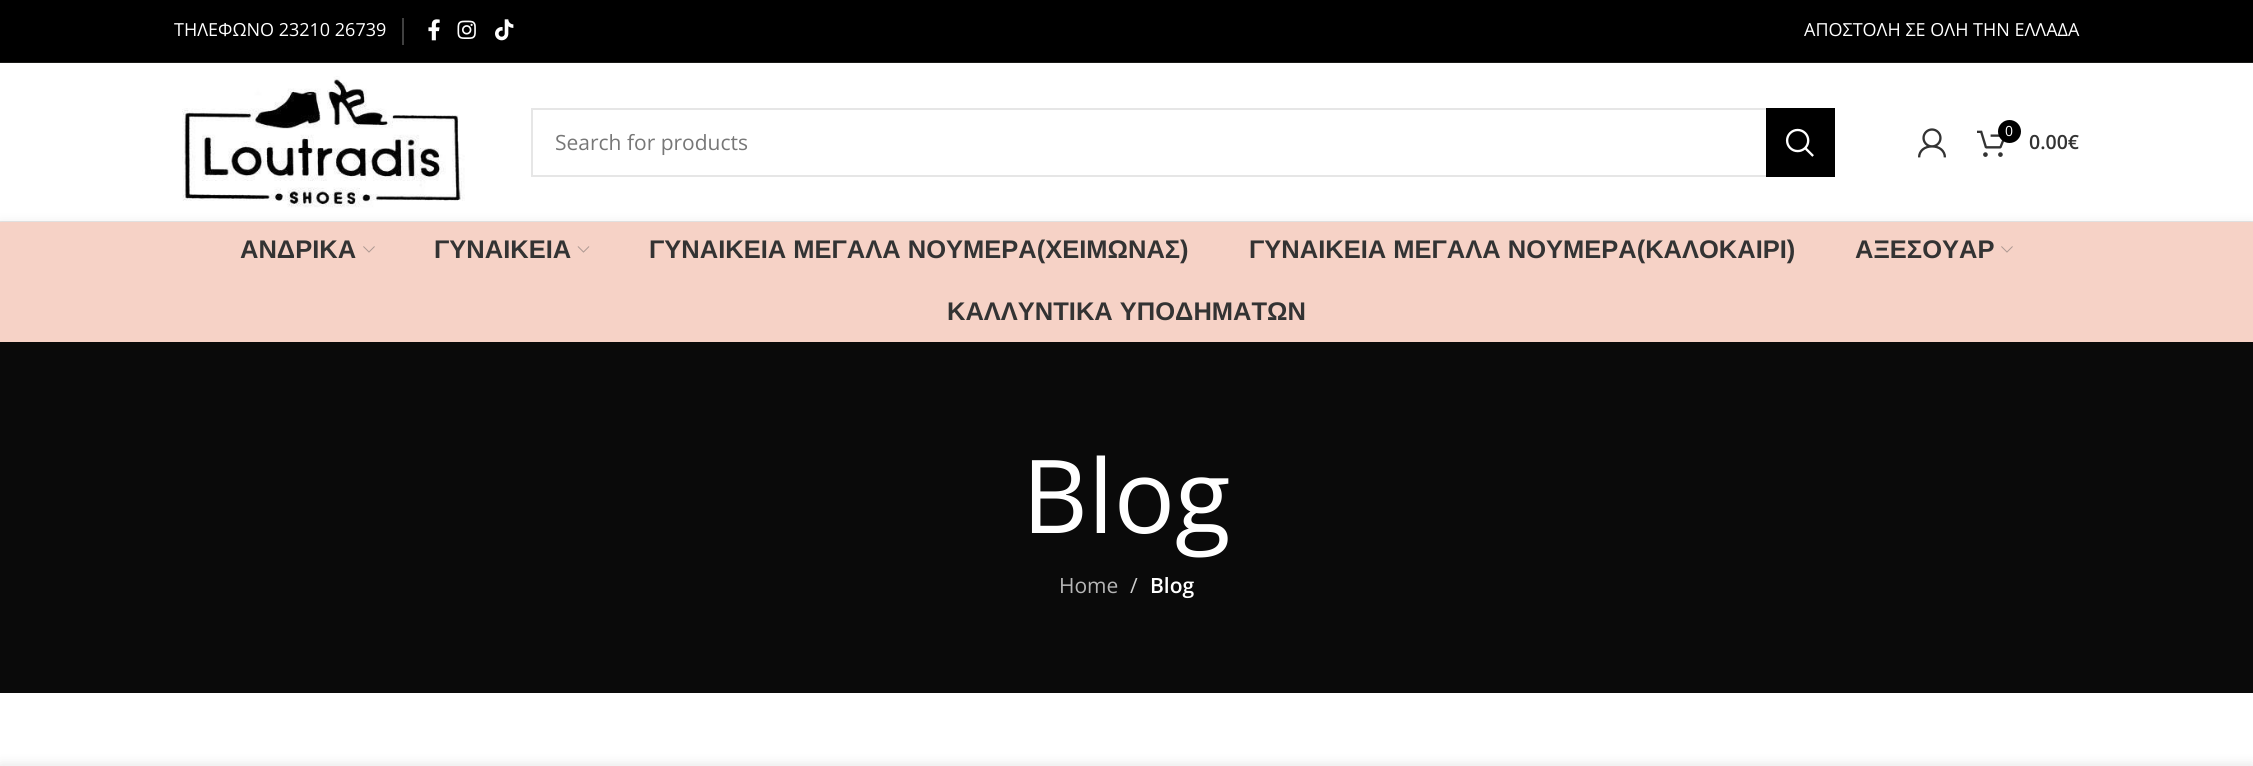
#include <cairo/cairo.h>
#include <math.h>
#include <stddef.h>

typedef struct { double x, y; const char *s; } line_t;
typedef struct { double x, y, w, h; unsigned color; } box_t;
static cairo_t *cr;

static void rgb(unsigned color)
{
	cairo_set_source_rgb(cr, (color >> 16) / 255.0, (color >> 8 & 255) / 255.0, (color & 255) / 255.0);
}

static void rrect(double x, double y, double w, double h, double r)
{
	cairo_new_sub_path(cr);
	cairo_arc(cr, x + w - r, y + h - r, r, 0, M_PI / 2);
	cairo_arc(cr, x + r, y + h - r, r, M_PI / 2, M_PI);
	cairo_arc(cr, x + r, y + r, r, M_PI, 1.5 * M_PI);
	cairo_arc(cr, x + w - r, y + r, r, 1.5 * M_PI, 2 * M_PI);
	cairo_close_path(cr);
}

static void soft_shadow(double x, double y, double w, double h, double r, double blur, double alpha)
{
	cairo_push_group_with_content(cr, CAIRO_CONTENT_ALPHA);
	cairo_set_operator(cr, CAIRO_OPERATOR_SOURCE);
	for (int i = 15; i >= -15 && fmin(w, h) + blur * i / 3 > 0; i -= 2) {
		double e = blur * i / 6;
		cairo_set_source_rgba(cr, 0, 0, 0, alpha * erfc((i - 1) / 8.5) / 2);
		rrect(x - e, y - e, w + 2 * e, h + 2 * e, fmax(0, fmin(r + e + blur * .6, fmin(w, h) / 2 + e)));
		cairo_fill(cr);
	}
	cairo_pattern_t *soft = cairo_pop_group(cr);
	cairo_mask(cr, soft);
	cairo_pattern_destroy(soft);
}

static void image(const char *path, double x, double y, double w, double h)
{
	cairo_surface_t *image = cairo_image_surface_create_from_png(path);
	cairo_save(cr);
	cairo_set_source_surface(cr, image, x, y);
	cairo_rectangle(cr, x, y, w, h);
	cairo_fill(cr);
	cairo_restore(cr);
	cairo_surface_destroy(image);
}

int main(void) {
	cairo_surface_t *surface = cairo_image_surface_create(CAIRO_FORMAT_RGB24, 2253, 766);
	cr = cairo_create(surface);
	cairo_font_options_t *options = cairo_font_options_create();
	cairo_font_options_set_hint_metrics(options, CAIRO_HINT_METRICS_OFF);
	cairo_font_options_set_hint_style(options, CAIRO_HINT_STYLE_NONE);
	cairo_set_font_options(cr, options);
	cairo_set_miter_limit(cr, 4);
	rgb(0xffffff);
	cairo_paint(cr);
	{
		static const box_t items[] = {
			{0, 0, 2253, 62, 0x000000},
			{0, 62, 2253, 1, 0x1a1a18},
			{402, 18, 2, 27, 0x404040},
		};
		for (size_t i = 0; i < sizeof items / sizeof *items; i++) {
			rgb(items[i].color);
			cairo_rectangle(cr, items[i].x, items[i].y, items[i].w, items[i].h);
			cairo_fill(cr);
		}
	}
	image("img/1.png", 428, 19, 12, 22);
	image("img/2.png", 457, 20, 19, 19);
	image("img/3.png", 495, 19, 19, 22);
	rgb(0xe8e8e8);
	cairo_rectangle(cr, 0, 221, 2253, 1);
	cairo_fill(cr);
	rgb(0x0a0a0a);
	cairo_rectangle(cr, 0, 342, 2253, 351);
	cairo_fill(cr);
	rgb(0x000000);
	soft_shadow(0, 224, 2253, 120, 0, 6, 0.1);
	image("img/4.png", 182, 76, 283, 132);
	cairo_rectangle(cr, 532, 109, 1302, 67);
	rgb(0xe6e6e6);
	cairo_stroke(cr);
	rgb(0x000000);
	cairo_rectangle(cr, 1766, 108, 69, 69);
	cairo_fill(cr);
	image("img/5.png", 1785, 128, 29, 29);
	image("img/6.png", 1918, 128, 28, 30);
	image("img/7.png", 1977, 130, 28, 27);
	cairo_arc(cr, 2009.5, 131.5, 11.5, 0, 2 * M_PI);
	cairo_fill(cr);
	rgb(0xf6d2c6);
	cairo_rectangle(cr, 0, 222, 2253, 120);
	cairo_fill(cr);
	image("img/8.png", 363, 246, 12, 7);
	image("img/9.png", 577, 246, 13, 7);
	image("img/8.png", 2001, 246, 12, 7);
	rgb(0x000000);
	soft_shadow(0, 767, 2253, 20, 0, 7, 0.14);
	cairo_select_font_face(cr, "Open Sans", CAIRO_FONT_SLANT_NORMAL, CAIRO_FONT_WEIGHT_NORMAL);
	cairo_set_font_size(cr, 18);
	rgb(0xffffff);
	cairo_move_to(cr, 174, 36);
	cairo_show_text(cr, "ΤΗΛΕΦΩΝΟ 23210 26739");
	cairo_move_to(cr, 1804, 36);
	cairo_show_text(cr, "ΑΠΟΣΤΟΛΗ ΣΕ ΟΛΗ ΤΗΝ ΕΛΛΑΔΑ");
	cairo_set_font_size(cr, 21);
	rgb(0x777777);
	cairo_move_to(cr, 555, 150);
	cairo_show_text(cr, "Search for products");
	cairo_set_font_size(cr, 14);
	rgb(0xffffff);
	cairo_move_to(cr, 2005, 136);
	cairo_show_text(cr, "0");
	cairo_select_font_face(cr, "Open Sans SemiBold", CAIRO_FONT_SLANT_NORMAL, CAIRO_FONT_WEIGHT_NORMAL);
	cairo_set_font_size(cr, 19.5);
	rgb(0x333333);
	cairo_move_to(cr, 2029, 149);
	cairo_show_text(cr, "0.00€");
	cairo_select_font_face(cr, "Liberation Sans", CAIRO_FONT_SLANT_NORMAL, CAIRO_FONT_WEIGHT_BOLD);
	cairo_set_font_size(cr, 25.5);
	{
		static const line_t items[] = {
			{240, 258, "ΑΝΔΡΙΚΑ"},
			{434, 258, "ΓΥΝΑΙΚΕΙΑ"},
			{649, 258, "ΓΥΝΑΙΚΕΙΑ ΜΕΓΑΛΑ ΝΟΥΜΕΡΑ(ΧΕΙΜΩΝΑΣ)"},
			{1249, 258, "ΓΥΝΑΙΚΕΙΑ ΜΕΓΑΛΑ ΝΟΥΜΕΡΑ(ΚΑΛΟΚΑΙΡΙ)"},
			{1855, 258, "ΑΞΕΣΟΥΑΡ"},
			{947, 320, "ΚΑΛΛΥΝΤΙΚΑ ΥΠΟΔΗΜΑΤΩΝ"},
		};
		for (size_t i = 0; i < sizeof items / sizeof *items; i++) {
			cairo_move_to(cr, items[i].x, items[i].y);
			cairo_show_text(cr, items[i].s);
		}
	}
	cairo_select_font_face(cr, "Open Sans", CAIRO_FONT_SLANT_NORMAL, CAIRO_FONT_WEIGHT_NORMAL);
	cairo_set_font_size(cr, 102);
	rgb(0xffffff);
	cairo_move_to(cr, 1022, 533);
	cairo_show_text(cr, "Blog");
	cairo_set_font_size(cr, 21);
	rgb(0xb6b6b6);
	cairo_move_to(cr, 1059, 593);
	cairo_show_text(cr, "Home");
	rgb(0xcecece);
	cairo_move_to(cr, 1130, 593);
	cairo_show_text(cr, "/");
	cairo_select_font_face(cr, "Open Sans SemiBold", CAIRO_FONT_SLANT_NORMAL, CAIRO_FONT_WEIGHT_NORMAL);
	rgb(0xffffff);
	cairo_move_to(cr, 1150, 593);
	cairo_show_text(cr, "Blog");
	cairo_surface_write_to_png(surface, "page.png");
	cairo_font_options_destroy(options);
	cairo_destroy(cr);
	cairo_surface_destroy(surface);
	return 0;
}
